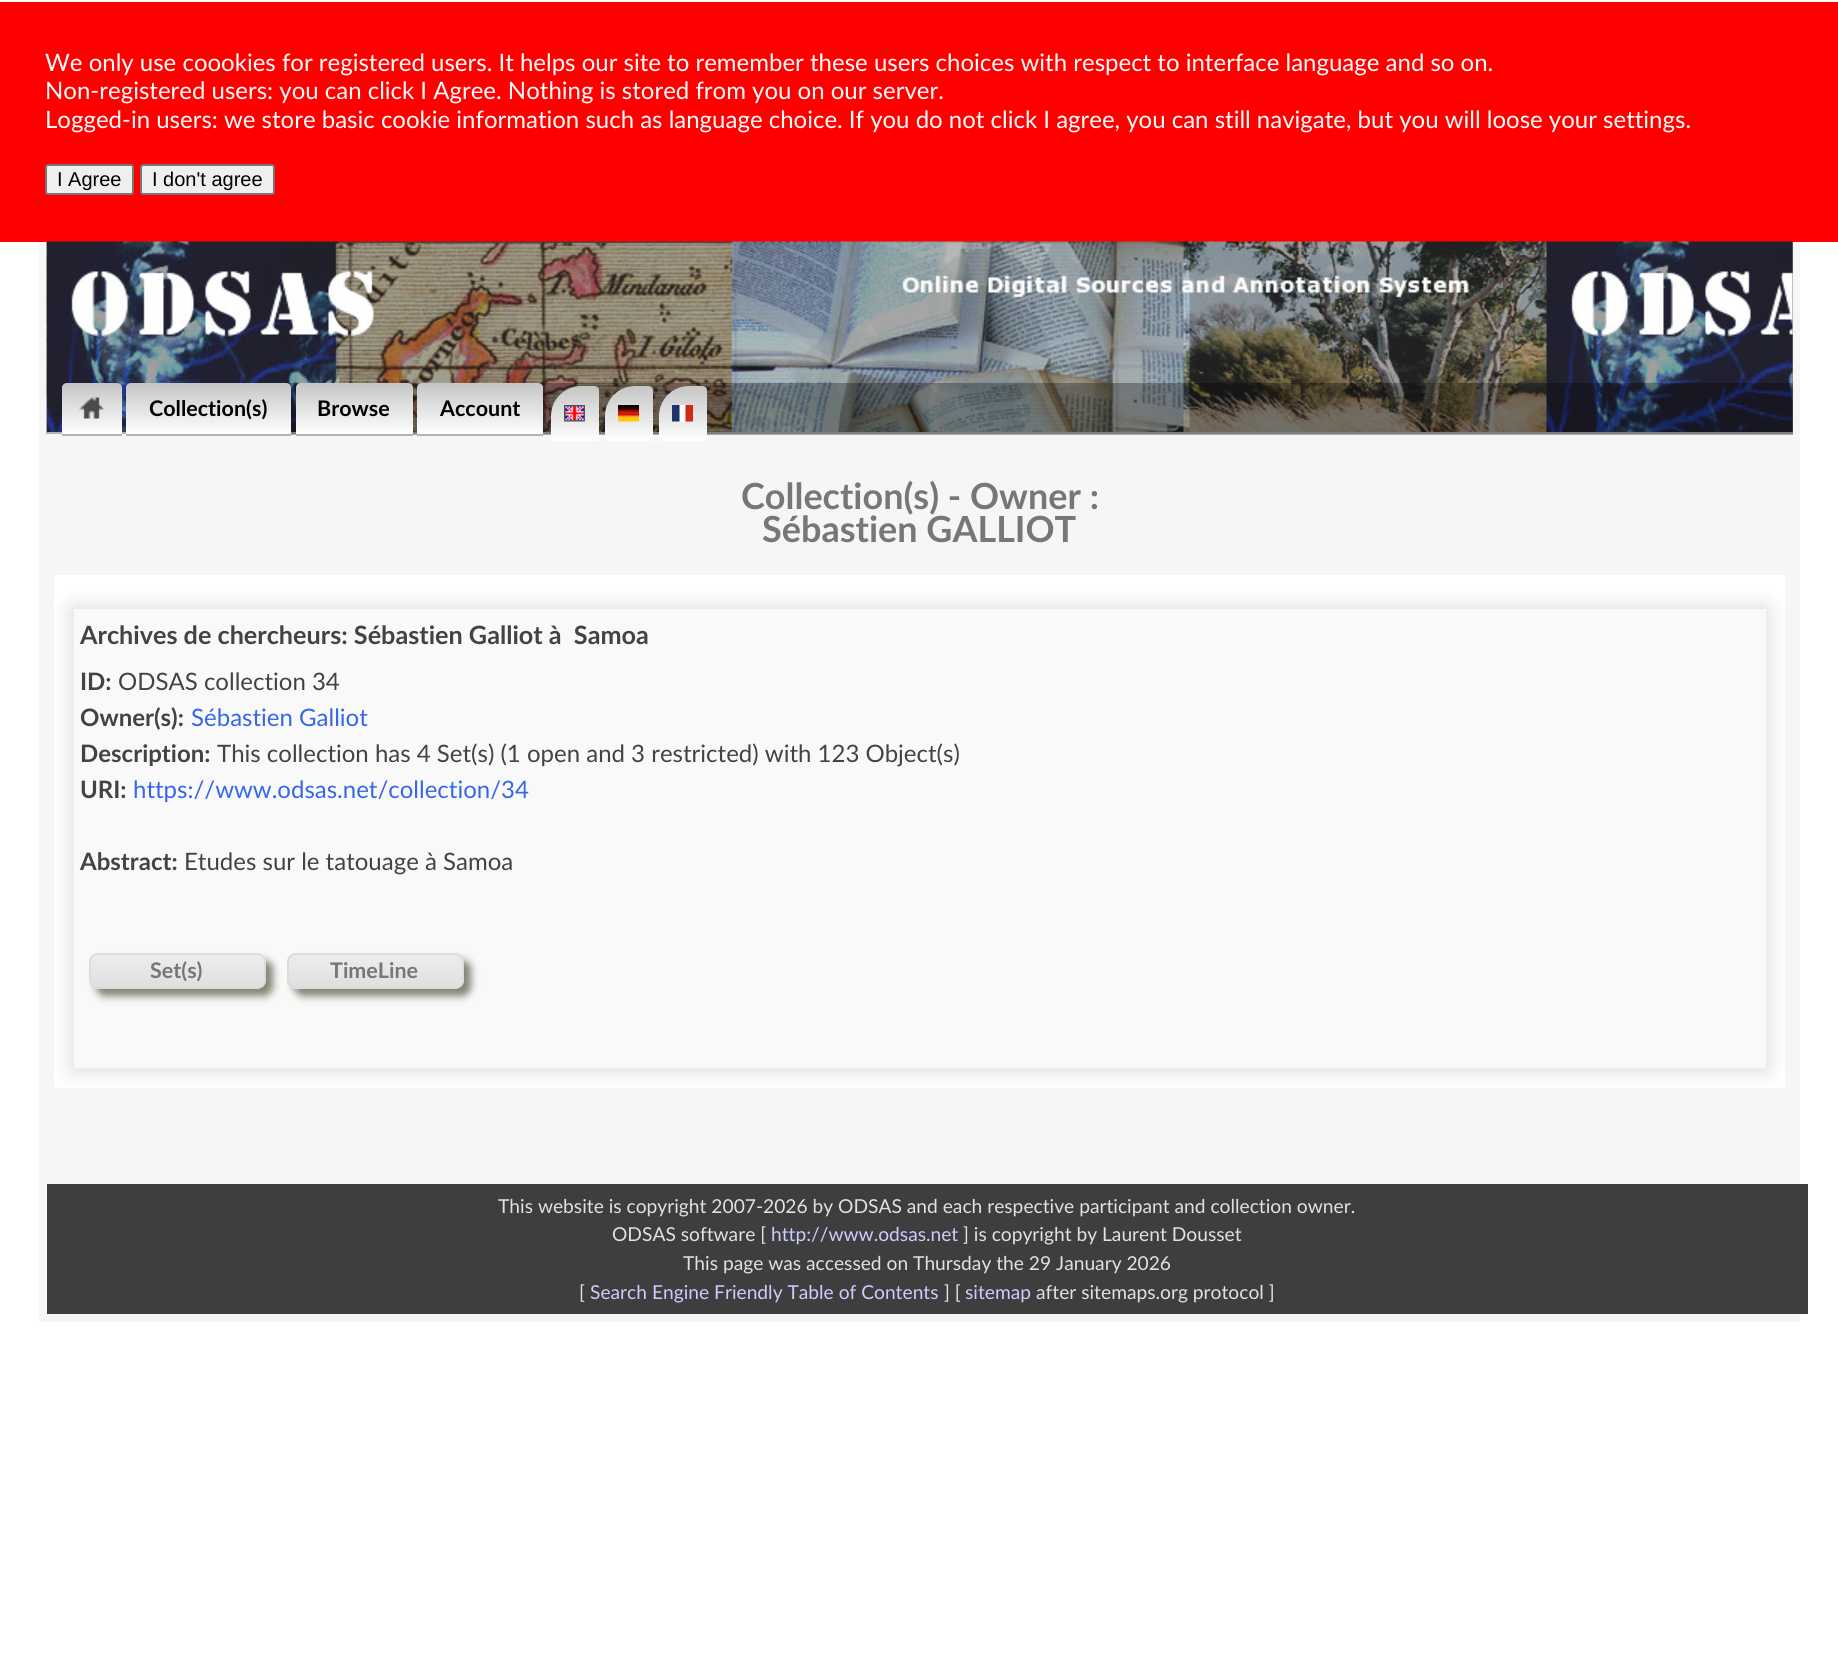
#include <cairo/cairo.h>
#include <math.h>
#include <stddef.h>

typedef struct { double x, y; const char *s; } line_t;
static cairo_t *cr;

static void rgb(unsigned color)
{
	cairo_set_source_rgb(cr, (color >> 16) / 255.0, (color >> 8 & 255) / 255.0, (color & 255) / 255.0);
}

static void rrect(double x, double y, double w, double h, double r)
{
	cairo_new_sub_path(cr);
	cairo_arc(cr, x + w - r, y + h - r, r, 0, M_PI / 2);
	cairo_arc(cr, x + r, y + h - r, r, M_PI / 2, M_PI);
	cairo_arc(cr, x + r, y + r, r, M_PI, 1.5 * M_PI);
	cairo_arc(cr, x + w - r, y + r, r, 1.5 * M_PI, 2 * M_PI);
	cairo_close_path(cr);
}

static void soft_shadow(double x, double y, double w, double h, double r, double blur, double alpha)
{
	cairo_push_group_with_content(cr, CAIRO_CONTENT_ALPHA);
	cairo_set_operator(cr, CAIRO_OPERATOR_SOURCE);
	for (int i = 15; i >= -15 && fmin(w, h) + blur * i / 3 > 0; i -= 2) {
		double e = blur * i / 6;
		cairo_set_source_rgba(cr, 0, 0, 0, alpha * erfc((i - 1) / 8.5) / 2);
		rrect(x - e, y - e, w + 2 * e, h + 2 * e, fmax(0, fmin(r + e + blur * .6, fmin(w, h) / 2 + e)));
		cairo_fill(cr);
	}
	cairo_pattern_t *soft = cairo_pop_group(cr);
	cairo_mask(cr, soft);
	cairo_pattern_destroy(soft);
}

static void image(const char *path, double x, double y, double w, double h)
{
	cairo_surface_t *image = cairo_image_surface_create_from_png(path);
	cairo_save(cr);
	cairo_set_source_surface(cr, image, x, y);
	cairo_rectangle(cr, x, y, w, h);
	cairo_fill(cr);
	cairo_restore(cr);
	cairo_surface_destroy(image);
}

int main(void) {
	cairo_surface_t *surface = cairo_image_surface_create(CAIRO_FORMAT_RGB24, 1838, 1670);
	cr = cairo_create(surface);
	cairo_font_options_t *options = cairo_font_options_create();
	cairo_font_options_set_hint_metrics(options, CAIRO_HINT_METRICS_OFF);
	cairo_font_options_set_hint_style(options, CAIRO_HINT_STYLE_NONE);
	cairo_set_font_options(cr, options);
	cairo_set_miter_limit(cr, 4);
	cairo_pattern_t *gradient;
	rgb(0xffffff);
	cairo_paint(cr);
	rgb(0xff0000);
	cairo_rectangle(cr, 0, 2, 1838, 240);
	cairo_fill(cr);
	rgb(0xefefef);
	rrect(46, 165, 87, 29, 2);
	cairo_fill_preserve(cr);
	rgb(0x767676);
	cairo_stroke(cr);
	rgb(0xefefef);
	rrect(141, 165, 133, 29, 2);
	cairo_fill_preserve(cr);
	rgb(0x767676);
	cairo_stroke(cr);
	rgb(0xf6f6f6);
	cairo_rectangle(cr, 39, 242, 1761, 1080);
	cairo_fill(cr);
	rgb(0x808080);
	cairo_rectangle(cr, 1792, 242, 1, 190);
	cairo_fill(cr);
	image("img/1.png", 46, 241, 1747, 193);
	rgb(0xb3b3b3);
	cairo_rectangle(cr, 47, 432, 1746, 2);
	cairo_fill(cr);
	cairo_set_source_rgba(cr, 0, 0, 0, 0.3);
	cairo_rectangle(cr, 286, 383, 1507, 52);
	cairo_fill(cr);
	gradient = cairo_pattern_create_linear(92, 434, 92, 383);
	cairo_pattern_add_color_stop_rgba(gradient, 0, 1, 1, 1, 1);
	cairo_pattern_add_color_stop_rgba(gradient, 1, 0.773, 0.773, 0.773, 1);
	cairo_set_source(cr, gradient);
	cairo_pattern_destroy(gradient);
	cairo_new_path(cr);
	cairo_move_to(cr, 67, 383);
	cairo_line_to(cr, 117, 383);
	cairo_curve_to(cr, 120, 383, 122, 385, 122, 388);
	cairo_line_to(cr, 122, 434);
	cairo_line_to(cr, 62, 434);
	cairo_line_to(cr, 62, 388);
	cairo_curve_to(cr, 62, 385, 64, 383, 67, 383);
	cairo_close_path(cr);
	cairo_fill(cr);
	rgb(0xb3b3b3);
	cairo_rectangle(cr, 62, 434, 60, 2);
	cairo_fill(cr);
	image("img/2.png", 79, 397, 25, 22);
	gradient = cairo_pattern_create_linear(209, 434, 209, 383);
	cairo_pattern_add_color_stop_rgba(gradient, 0, 1, 1, 1, 1);
	cairo_pattern_add_color_stop_rgba(gradient, 1, 0.773, 0.773, 0.773, 1);
	cairo_set_source(cr, gradient);
	cairo_pattern_destroy(gradient);
	cairo_new_path(cr);
	cairo_move_to(cr, 131, 383);
	cairo_line_to(cr, 286, 383);
	cairo_curve_to(cr, 289, 383, 291, 385, 291, 388);
	cairo_line_to(cr, 291, 434);
	cairo_line_to(cr, 126, 434);
	cairo_line_to(cr, 126, 388);
	cairo_curve_to(cr, 126, 385, 128, 383, 131, 383);
	cairo_close_path(cr);
	cairo_fill(cr);
	rgb(0xb3b3b3);
	cairo_rectangle(cr, 126, 434, 165, 2);
	cairo_fill(cr);
	gradient = cairo_pattern_create_linear(354, 434, 354, 383);
	cairo_pattern_add_color_stop_rgba(gradient, 0, 1, 1, 1, 1);
	cairo_pattern_add_color_stop_rgba(gradient, 1, 0.773, 0.773, 0.773, 1);
	cairo_set_source(cr, gradient);
	cairo_pattern_destroy(gradient);
	cairo_new_path(cr);
	cairo_move_to(cr, 301, 383);
	cairo_line_to(cr, 408, 383);
	cairo_curve_to(cr, 411, 383, 413, 385, 413, 388);
	cairo_line_to(cr, 413, 434);
	cairo_line_to(cr, 296, 434);
	cairo_line_to(cr, 296, 388);
	cairo_curve_to(cr, 296, 385, 298, 383, 301, 383);
	cairo_close_path(cr);
	cairo_fill(cr);
	rgb(0xb3b3b3);
	cairo_rectangle(cr, 296, 434, 117, 2);
	cairo_fill(cr);
	gradient = cairo_pattern_create_linear(480, 434, 480, 383);
	cairo_pattern_add_color_stop_rgba(gradient, 0, 1, 1, 1, 1);
	cairo_pattern_add_color_stop_rgba(gradient, 1, 0.773, 0.773, 0.773, 1);
	cairo_set_source(cr, gradient);
	cairo_pattern_destroy(gradient);
	cairo_new_path(cr);
	cairo_move_to(cr, 422, 383);
	cairo_line_to(cr, 538, 383);
	cairo_curve_to(cr, 541, 383, 543, 385, 543, 388);
	cairo_line_to(cr, 543, 434);
	cairo_line_to(cr, 417, 434);
	cairo_line_to(cr, 417, 388);
	cairo_curve_to(cr, 417, 385, 419, 383, 422, 383);
	cairo_close_path(cr);
	cairo_fill(cr);
	rgb(0xb3b3b3);
	cairo_rectangle(cr, 417, 434, 126, 2);
	cairo_fill(cr);
	gradient = cairo_pattern_create_linear(575, 441, 575, 386);
	cairo_pattern_add_color_stop_rgba(gradient, 0, 1, 1, 1, 1);
	cairo_pattern_add_color_stop_rgba(gradient, 1, 0.773, 0.773, 0.773, 1);
	cairo_set_source(cr, gradient);
	cairo_pattern_destroy(gradient);
	cairo_new_path(cr);
	cairo_move_to(cr, 581, 386);
	cairo_line_to(cr, 594, 386);
	cairo_curve_to(cr, 597, 386, 599, 388, 599, 391);
	cairo_line_to(cr, 599, 441);
	cairo_line_to(cr, 551, 441);
	cairo_line_to(cr, 551, 416);
	cairo_curve_to(cr, 551, 399.5, 564.5, 386, 581, 386);
	cairo_close_path(cr);
	cairo_fill(cr);
	image("img/3.png", 564, 405, 21, 17);
	gradient = cairo_pattern_create_linear(629, 441, 629, 386);
	cairo_pattern_add_color_stop_rgba(gradient, 0, 1, 1, 1, 1);
	cairo_pattern_add_color_stop_rgba(gradient, 1, 0.773, 0.773, 0.773, 1);
	cairo_set_source(cr, gradient);
	cairo_pattern_destroy(gradient);
	cairo_new_path(cr);
	cairo_move_to(cr, 635, 386);
	cairo_line_to(cr, 648, 386);
	cairo_curve_to(cr, 651, 386, 653, 388, 653, 391);
	cairo_line_to(cr, 653, 441);
	cairo_line_to(cr, 605, 441);
	cairo_line_to(cr, 605, 416);
	cairo_curve_to(cr, 605, 399.5, 618.5, 386, 635, 386);
	cairo_close_path(cr);
	cairo_fill(cr);
	image("img/4.png", 618, 405, 21, 17);
	gradient = cairo_pattern_create_linear(683, 441, 683, 386);
	cairo_pattern_add_color_stop_rgba(gradient, 0, 1, 1, 1, 1);
	cairo_pattern_add_color_stop_rgba(gradient, 1, 0.773, 0.773, 0.773, 1);
	cairo_set_source(cr, gradient);
	cairo_pattern_destroy(gradient);
	cairo_new_path(cr);
	cairo_move_to(cr, 689, 386);
	cairo_line_to(cr, 702, 386);
	cairo_curve_to(cr, 705, 386, 707, 388, 707, 391);
	cairo_line_to(cr, 707, 441);
	cairo_line_to(cr, 659, 441);
	cairo_line_to(cr, 659, 416);
	cairo_curve_to(cr, 659, 399.5, 672.5, 386, 689, 386);
	cairo_close_path(cr);
	cairo_fill(cr);
	image("img/5.png", 672, 405, 21, 17);
	rgb(0xffffff);
	cairo_rectangle(cr, 54, 575, 1731, 513);
	cairo_fill(cr);
	rgb(0x000000);
	soft_shadow(72, 608, 1695, 462, 0, 11, 0.15);
	rgb(0xf9f9f9);
	cairo_rectangle(cr, 74, 609, 1692, 459);
	cairo_fill(cr);
	rgb(0x818374);
	soft_shadow(96, 960, 177, 36, 9, 4, 1);
	cairo_save(cr);
	rrect(89, 953, 177, 36, 9);
	cairo_clip(cr);
	gradient = cairo_pattern_create_linear(90, 954, 90, 987);
	cairo_pattern_add_color_stop_rgba(gradient, 0.05, 0.929, 0.929, 0.929, 1);
	cairo_pattern_add_color_stop_rgba(gradient, 1, 0.875, 0.875, 0.875, 1);
	cairo_set_source(cr, gradient);
	cairo_pattern_destroy(gradient);
	cairo_rectangle(cr, 89, 954, 177, 33);
	cairo_fill(cr);
	cairo_restore(cr);
	rrect(90, 954, 175, 34, 8);
	rgb(0xdcdcdc);
	cairo_stroke(cr);
	rgb(0x818374);
	soft_shadow(294, 960, 177, 36, 9, 4, 1);
	cairo_save(cr);
	rrect(287, 953, 177, 36, 9);
	cairo_clip(cr);
	gradient = cairo_pattern_create_linear(288, 954, 288, 987);
	cairo_pattern_add_color_stop_rgba(gradient, 0.05, 0.929, 0.929, 0.929, 1);
	cairo_pattern_add_color_stop_rgba(gradient, 1, 0.875, 0.875, 0.875, 1);
	cairo_set_source(cr, gradient);
	cairo_pattern_destroy(gradient);
	cairo_rectangle(cr, 287, 954, 177, 33);
	cairo_fill(cr);
	cairo_restore(cr);
	rrect(288, 954, 175, 34, 8);
	rgb(0xdcdcdc);
	cairo_stroke(cr);
	rgb(0x3e3e3e);
	cairo_rectangle(cr, 47, 1184, 1761, 130);
	cairo_fill(cr);
	cairo_select_font_face(cr, "Lato", CAIRO_FONT_SLANT_NORMAL, CAIRO_FONT_WEIGHT_NORMAL);
	cairo_set_font_size(cr, 24);
	rgb(0xffffff);
	{
		static const line_t items[] = {
			{45, 71, "We only use coookies for registered users. It helps our site to remember these users choices with respect to interface language and so on."},
			{45, 99, "Non-registered users: you can click I Agree. Nothing is stored from you on our server."},
			{45, 128, "Logged-in users: we store basic cookie information such as language choice. If you do not click I agree, you can still navigate, but you will loose your settings."},
		};
		for (size_t i = 0; i < sizeof items / sizeof *items; i++) {
			cairo_move_to(cr, items[i].x, items[i].y);
			cairo_show_text(cr, items[i].s);
		}
	}
	cairo_select_font_face(cr, "Liberation Sans", CAIRO_FONT_SLANT_NORMAL, CAIRO_FONT_WEIGHT_NORMAL);
	cairo_set_font_size(cr, 20);
	rgb(0x000000);
	cairo_move_to(cr, 57, 186);
	cairo_show_text(cr, "I Agree");
	cairo_move_to(cr, 152, 186);
	cairo_show_text(cr, "I don't agree");
	cairo_select_font_face(cr, "Lato", CAIRO_FONT_SLANT_NORMAL, CAIRO_FONT_WEIGHT_BOLD);
	cairo_set_font_size(cr, 21.5);
	{
		static const line_t items[] = {
			{149, 416, "Collection(s)"},
			{317, 416, "Browse"},
			{440, 416, "Account"},
		};
		for (size_t i = 0; i < sizeof items / sizeof *items; i++) {
			cairo_move_to(cr, items[i].x, items[i].y);
			cairo_show_text(cr, items[i].s);
		}
	}
	cairo_set_font_size(cr, 36);
	rgb(0x777777);
	cairo_move_to(cr, 741, 509);
	cairo_show_text(cr, "Collection(s) - Owner :");
	cairo_move_to(cr, 762, 542);
	cairo_show_text(cr, "Sébastien GALLIOT");
	cairo_set_font_size(cr, 25.2);
	rgb(0x434343);
	cairo_move_to(cr, 80, 644);
	cairo_show_text(cr, "Archives de chercheurs: Sébastien Galliot à  Samoa");
	cairo_set_font_size(cr, 24);
	cairo_move_to(cr, 80, 690);
	cairo_show_text(cr, "ID:");
	cairo_select_font_face(cr, "Lato", CAIRO_FONT_SLANT_NORMAL, CAIRO_FONT_WEIGHT_NORMAL);
	cairo_move_to(cr, 118, 690);
	cairo_show_text(cr, "ODSAS collection 34");
	cairo_select_font_face(cr, "Lato", CAIRO_FONT_SLANT_NORMAL, CAIRO_FONT_WEIGHT_BOLD);
	cairo_move_to(cr, 80, 726);
	cairo_show_text(cr, "Owner(s):");
	cairo_select_font_face(cr, "Lato", CAIRO_FONT_SLANT_NORMAL, CAIRO_FONT_WEIGHT_NORMAL);
	rgb(0x3567e8);
	cairo_move_to(cr, 191, 726);
	cairo_show_text(cr, "Sébastien Galliot");
	cairo_select_font_face(cr, "Lato", CAIRO_FONT_SLANT_NORMAL, CAIRO_FONT_WEIGHT_BOLD);
	rgb(0x434343);
	cairo_move_to(cr, 80, 762);
	cairo_show_text(cr, "Description:");
	cairo_select_font_face(cr, "Lato", CAIRO_FONT_SLANT_NORMAL, CAIRO_FONT_WEIGHT_NORMAL);
	cairo_move_to(cr, 217, 762);
	cairo_show_text(cr, "This collection has 4 Set(s) (1 open and 3 restricted) with 123 Object(s)");
	cairo_select_font_face(cr, "Lato", CAIRO_FONT_SLANT_NORMAL, CAIRO_FONT_WEIGHT_BOLD);
	cairo_move_to(cr, 80, 798);
	cairo_show_text(cr, "URI:");
	cairo_select_font_face(cr, "Lato", CAIRO_FONT_SLANT_NORMAL, CAIRO_FONT_WEIGHT_NORMAL);
	rgb(0x3567e8);
	cairo_move_to(cr, 133, 798);
	cairo_show_text(cr, "https://www.odsas.net/collection/34");
	cairo_select_font_face(cr, "Lato", CAIRO_FONT_SLANT_NORMAL, CAIRO_FONT_WEIGHT_BOLD);
	rgb(0x434343);
	cairo_move_to(cr, 80, 870);
	cairo_show_text(cr, "Abstract:");
	cairo_select_font_face(cr, "Lato", CAIRO_FONT_SLANT_NORMAL, CAIRO_FONT_WEIGHT_NORMAL);
	cairo_move_to(cr, 184, 870);
	cairo_show_text(cr, "Etudes sur le tatouage à Samoa");
	cairo_select_font_face(cr, "Lato", CAIRO_FONT_SLANT_NORMAL, CAIRO_FONT_WEIGHT_BOLD);
	cairo_set_font_size(cr, 21.5);
	rgb(0x777777);
	cairo_move_to(cr, 150, 978);
	cairo_show_text(cr, "Set(s)");
	cairo_move_to(cr, 330, 978);
	cairo_show_text(cr, "TimeLine");
	cairo_select_font_face(cr, "Lato", CAIRO_FONT_SLANT_NORMAL, CAIRO_FONT_WEIGHT_NORMAL);
	cairo_set_font_size(cr, 19.2);
	rgb(0xe1e1e1);
	cairo_move_to(cr, 498, 1213);
	cairo_show_text(cr, "This website is copyright 2007-2026 by ODSAS and each respective participant and collection owner.");
	cairo_move_to(cr, 612, 1241);
	cairo_show_text(cr, "ODSAS software [");
	rgb(0xccccff);
	cairo_move_to(cr, 771, 1241);
	cairo_show_text(cr, "http://www.odsas.net");
	rgb(0xe1e1e1);
	{
		static const line_t items[] = {
			{963, 1241, "] is copyright by Laurent Dousset"},
			{683, 1270, "This page was accessed on Thursday the 29 January 2026"},
			{579, 1299, "["},
		};
		for (size_t i = 0; i < sizeof items / sizeof *items; i++) {
			cairo_move_to(cr, items[i].x, items[i].y);
			cairo_show_text(cr, items[i].s);
		}
	}
	rgb(0xccccff);
	cairo_move_to(cr, 590, 1299);
	cairo_show_text(cr, "Search Engine Friendly Table of Contents");
	rgb(0xe1e1e1);
	cairo_move_to(cr, 944, 1299);
	cairo_show_text(cr, "] [");
	rgb(0xccccff);
	cairo_move_to(cr, 965, 1299);
	cairo_show_text(cr, "sitemap");
	rgb(0xe1e1e1);
	cairo_move_to(cr, 1036, 1299);
	cairo_show_text(cr, "after sitemaps.org protocol ]");
	cairo_surface_write_to_png(surface, "page.png");
	cairo_font_options_destroy(options);
	cairo_destroy(cr);
	cairo_surface_destroy(surface);
	return 0;
}
